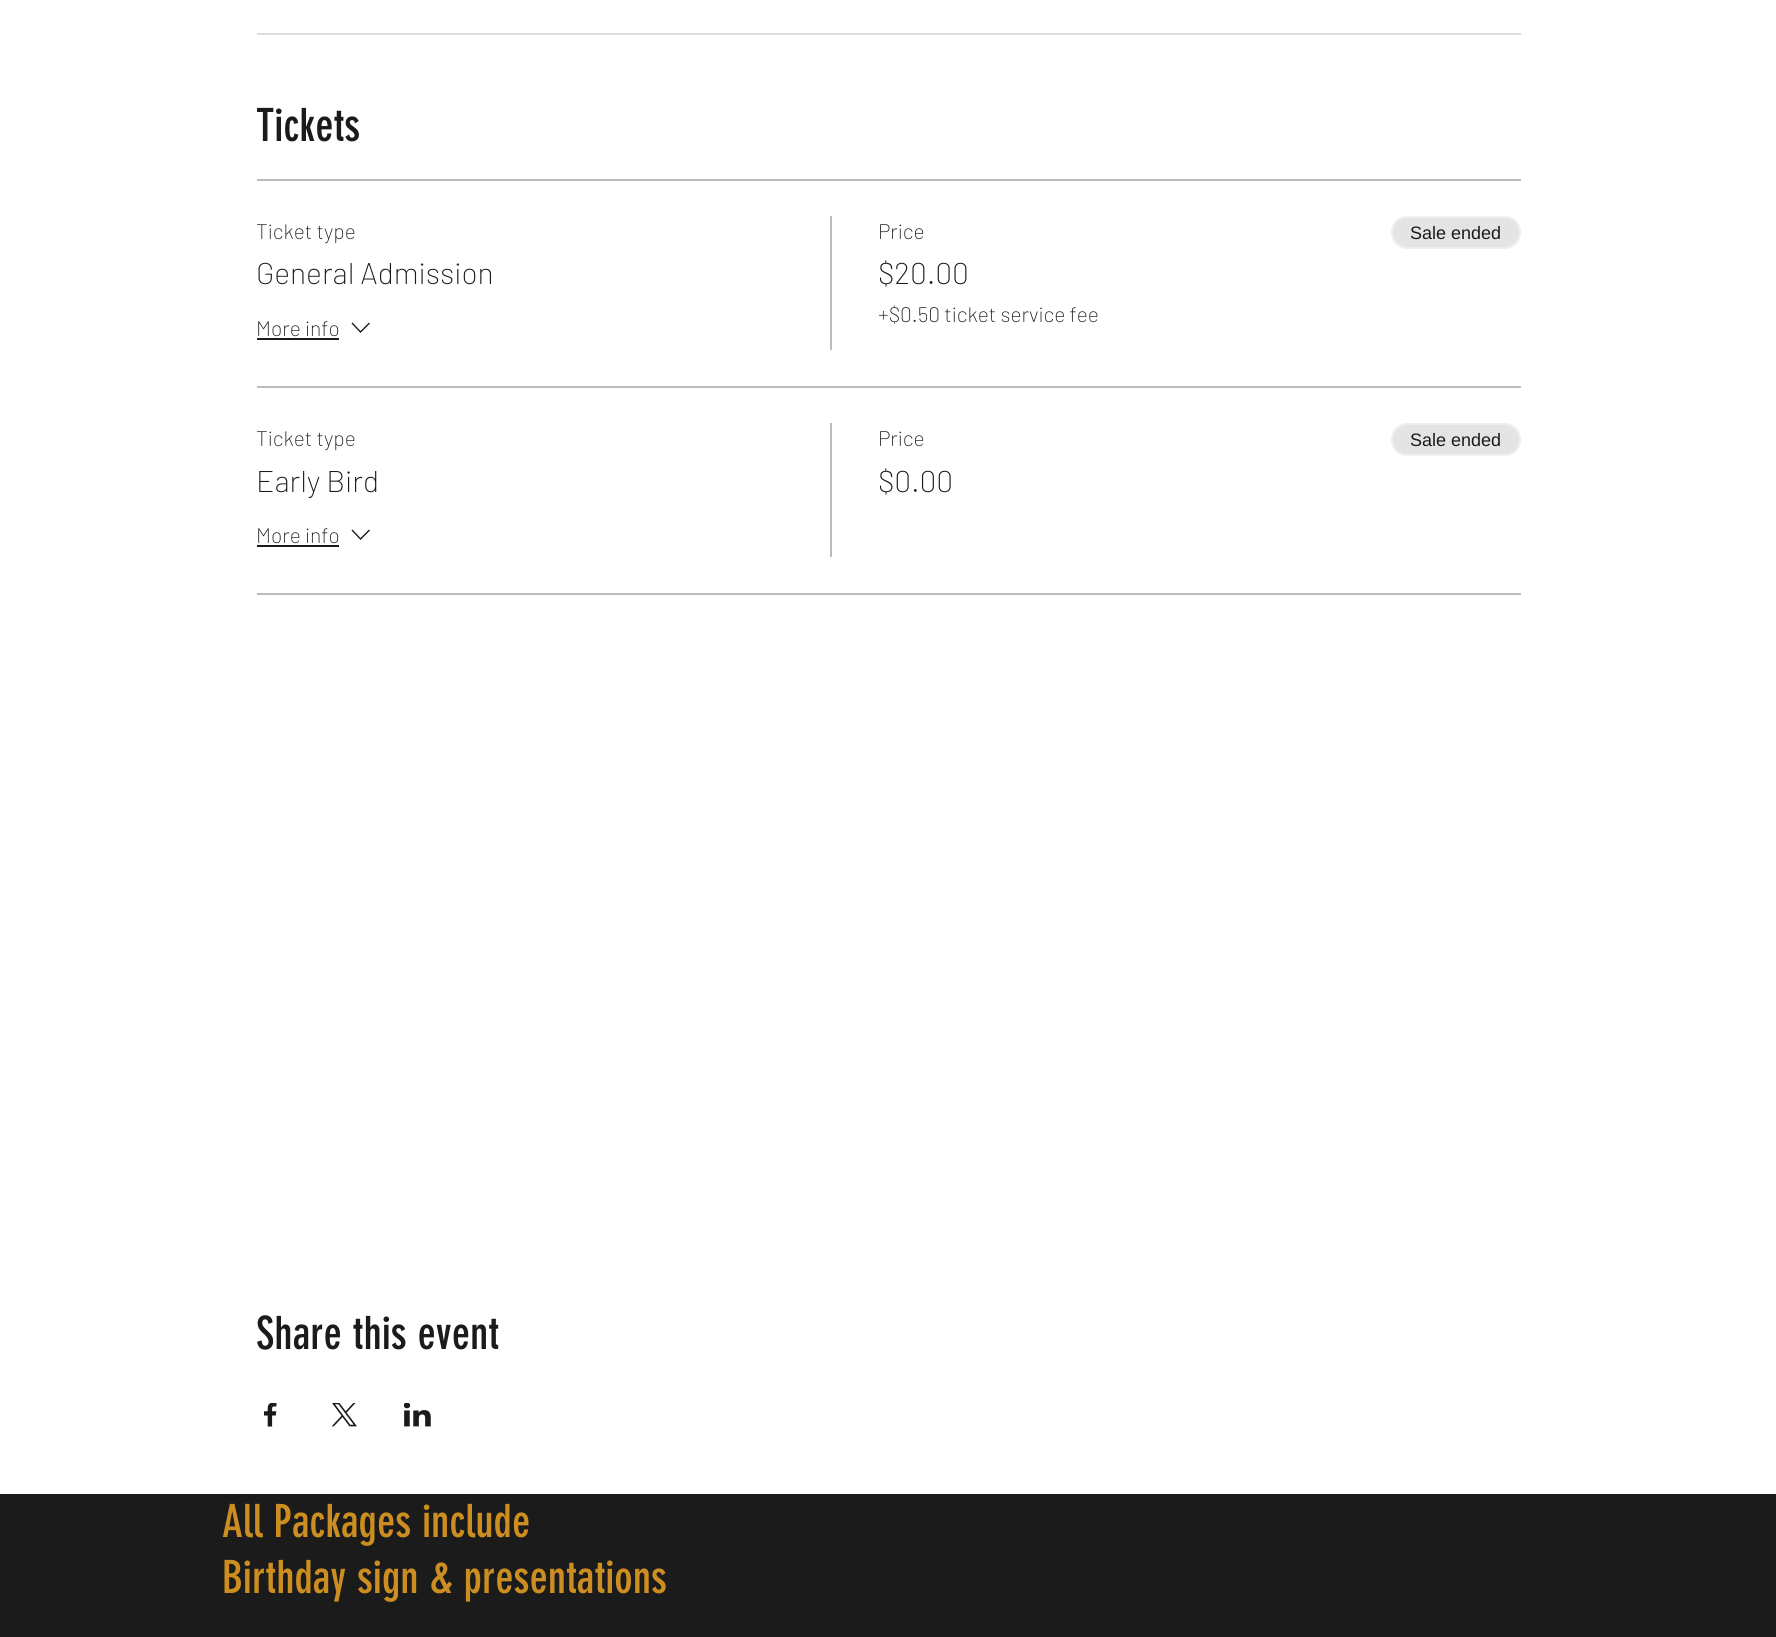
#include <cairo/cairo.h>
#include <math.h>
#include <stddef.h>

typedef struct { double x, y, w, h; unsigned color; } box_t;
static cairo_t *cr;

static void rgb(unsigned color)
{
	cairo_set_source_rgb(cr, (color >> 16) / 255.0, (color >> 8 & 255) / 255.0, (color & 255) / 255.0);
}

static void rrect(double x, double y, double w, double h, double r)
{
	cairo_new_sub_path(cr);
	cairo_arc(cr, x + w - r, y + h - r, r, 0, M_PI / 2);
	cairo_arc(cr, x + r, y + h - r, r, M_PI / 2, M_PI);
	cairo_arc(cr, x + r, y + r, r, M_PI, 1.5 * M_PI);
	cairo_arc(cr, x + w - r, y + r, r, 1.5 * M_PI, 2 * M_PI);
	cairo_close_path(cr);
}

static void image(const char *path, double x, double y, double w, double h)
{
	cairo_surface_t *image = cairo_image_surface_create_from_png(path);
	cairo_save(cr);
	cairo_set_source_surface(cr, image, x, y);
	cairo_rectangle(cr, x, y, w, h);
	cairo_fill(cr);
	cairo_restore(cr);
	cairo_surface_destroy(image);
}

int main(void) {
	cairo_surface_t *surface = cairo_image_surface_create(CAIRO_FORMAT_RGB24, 1776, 1637);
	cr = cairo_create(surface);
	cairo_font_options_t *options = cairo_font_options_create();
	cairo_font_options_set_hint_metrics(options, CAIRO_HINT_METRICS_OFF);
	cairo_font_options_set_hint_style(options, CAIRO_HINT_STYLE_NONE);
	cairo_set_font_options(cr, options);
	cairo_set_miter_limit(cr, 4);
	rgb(0xffffff);
	cairo_paint(cr);
	{
		static const box_t items[] = {
			{257, 33, 1264, 2, 0xdddddd},
			{257, 179, 1264, 2, 0xbbbbbb},
			{257, 386, 1264, 2, 0xbbbbbb},
			{257, 338, 82, 2, 0x1b1b1b},
		};
		for (size_t i = 0; i < sizeof items / sizeof *items; i++) {
			rgb(items[i].color);
			cairo_rectangle(cr, items[i].x, items[i].y, items[i].w, items[i].h);
			cairo_fill(cr);
		}
	}
	cairo_set_fill_rule(cr, CAIRO_FILL_RULE_EVEN_ODD);
	cairo_new_path(cr);
	cairo_move_to(cr, 369, 322.5);
	cairo_line_to(cr, 370, 323.5);
	cairo_line_to(cr, 360.5, 333);
	cairo_line_to(cr, 351.5, 323.5);
	cairo_line_to(cr, 352.5, 322.5);
	cairo_line_to(cr, 360.5, 331);
	cairo_close_path(cr);
	cairo_fill(cr);
	rgb(0xbbbbbb);
	cairo_rectangle(cr, 830, 216, 2, 134);
	cairo_fill(cr);
	rgb(0xe4e4e4);
	rrect(1391, 216, 130, 33, 16.5);
	cairo_fill(cr);
	rrect(1392, 217, 128, 31, 15.5);
	cairo_set_source_rgba(cr, 1, 1, 1, 0.4);
	cairo_stroke(cr);
	rgb(0xbbbbbb);
	cairo_rectangle(cr, 257, 593, 1264, 2);
	cairo_fill(cr);
	rgb(0x1b1b1b);
	cairo_rectangle(cr, 257, 545, 82, 2);
	cairo_fill(cr);
	cairo_new_path(cr);
	cairo_move_to(cr, 369, 529.5);
	cairo_line_to(cr, 370, 530.5);
	cairo_line_to(cr, 360.5, 540);
	cairo_line_to(cr, 351.5, 530.5);
	cairo_line_to(cr, 352.5, 529.5);
	cairo_line_to(cr, 360.5, 538);
	cairo_close_path(cr);
	cairo_fill(cr);
	rgb(0xbbbbbb);
	cairo_rectangle(cr, 830, 423, 2, 134);
	cairo_fill(cr);
	rgb(0xe4e4e4);
	rrect(1391, 423, 130, 33, 16.5);
	cairo_fill(cr);
	rrect(1392, 424, 128, 31, 15.5);
	cairo_set_source_rgba(cr, 1, 1, 1, 0.4);
	cairo_stroke(cr);
	image("img/1.png", 264, 1403, 13, 24);
	image("img/2.png", 331, 1403, 26, 24);
	image("img/3.png", 404, 1403, 27, 24);
	rgb(0x1b1b1b);
	cairo_rectangle(cr, 0, 1494, 1776, 143);
	cairo_fill(cr);
	cairo_select_font_face(cr, "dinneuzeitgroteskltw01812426", CAIRO_FONT_SLANT_NORMAL, CAIRO_FONT_WEIGHT_NORMAL);
	cairo_set_font_size(cr, 45);
	cairo_move_to(cr, 256, 141);
	cairo_show_text(cr, "Tickets");
	cairo_select_font_face(cr, "Barlow ExtraLight", CAIRO_FONT_SLANT_NORMAL, CAIRO_FONT_WEIGHT_NORMAL);
	cairo_set_font_size(cr, 21);
	cairo_move_to(cr, 256, 239);
	cairo_show_text(cr, "Ticket type");
	cairo_set_font_size(cr, 30);
	cairo_move_to(cr, 256, 284);
	cairo_show_text(cr, "General Admission");
	cairo_set_font_size(cr, 21);
	cairo_move_to(cr, 256, 336);
	cairo_show_text(cr, "More info");
	cairo_move_to(cr, 878, 239);
	cairo_show_text(cr, "Price");
	cairo_set_font_size(cr, 30);
	cairo_move_to(cr, 878, 284);
	cairo_show_text(cr, "$20.00");
	cairo_set_font_size(cr, 21);
	cairo_move_to(cr, 878, 322);
	cairo_show_text(cr, "+$0.50 ticket service fee");
	cairo_select_font_face(cr, "Liberation Sans", CAIRO_FONT_SLANT_NORMAL, CAIRO_FONT_WEIGHT_NORMAL);
	cairo_set_font_size(cr, 18);
	cairo_move_to(cr, 1410, 239);
	cairo_show_text(cr, "Sale ended");
	cairo_select_font_face(cr, "Barlow ExtraLight", CAIRO_FONT_SLANT_NORMAL, CAIRO_FONT_WEIGHT_NORMAL);
	cairo_set_font_size(cr, 21);
	cairo_move_to(cr, 256, 446);
	cairo_show_text(cr, "Ticket type");
	cairo_set_font_size(cr, 30);
	cairo_move_to(cr, 256, 492);
	cairo_show_text(cr, "Early Bird");
	cairo_set_font_size(cr, 21);
	cairo_move_to(cr, 256, 543);
	cairo_show_text(cr, "More info");
	cairo_move_to(cr, 878, 446);
	cairo_show_text(cr, "Price");
	cairo_set_font_size(cr, 30);
	cairo_move_to(cr, 878, 492);
	cairo_show_text(cr, "$0.00");
	cairo_select_font_face(cr, "Liberation Sans", CAIRO_FONT_SLANT_NORMAL, CAIRO_FONT_WEIGHT_NORMAL);
	cairo_set_font_size(cr, 18);
	cairo_move_to(cr, 1410, 446);
	cairo_show_text(cr, "Sale ended");
	cairo_select_font_face(cr, "dinneuzeitgroteskltw01812426", CAIRO_FONT_SLANT_NORMAL, CAIRO_FONT_WEIGHT_NORMAL);
	cairo_set_font_size(cr, 45);
	cairo_move_to(cr, 256, 1349);
	cairo_show_text(cr, "Share this event");
	rgb(0xcc8e20);
	cairo_move_to(cr, 222, 1537);
	cairo_show_text(cr, "All Packages include");
	cairo_move_to(cr, 222, 1593);
	cairo_show_text(cr, "Birthday sign & presentations");
	cairo_surface_write_to_png(surface, "page.png");
	cairo_font_options_destroy(options);
	cairo_destroy(cr);
	cairo_surface_destroy(surface);
	return 0;
}
